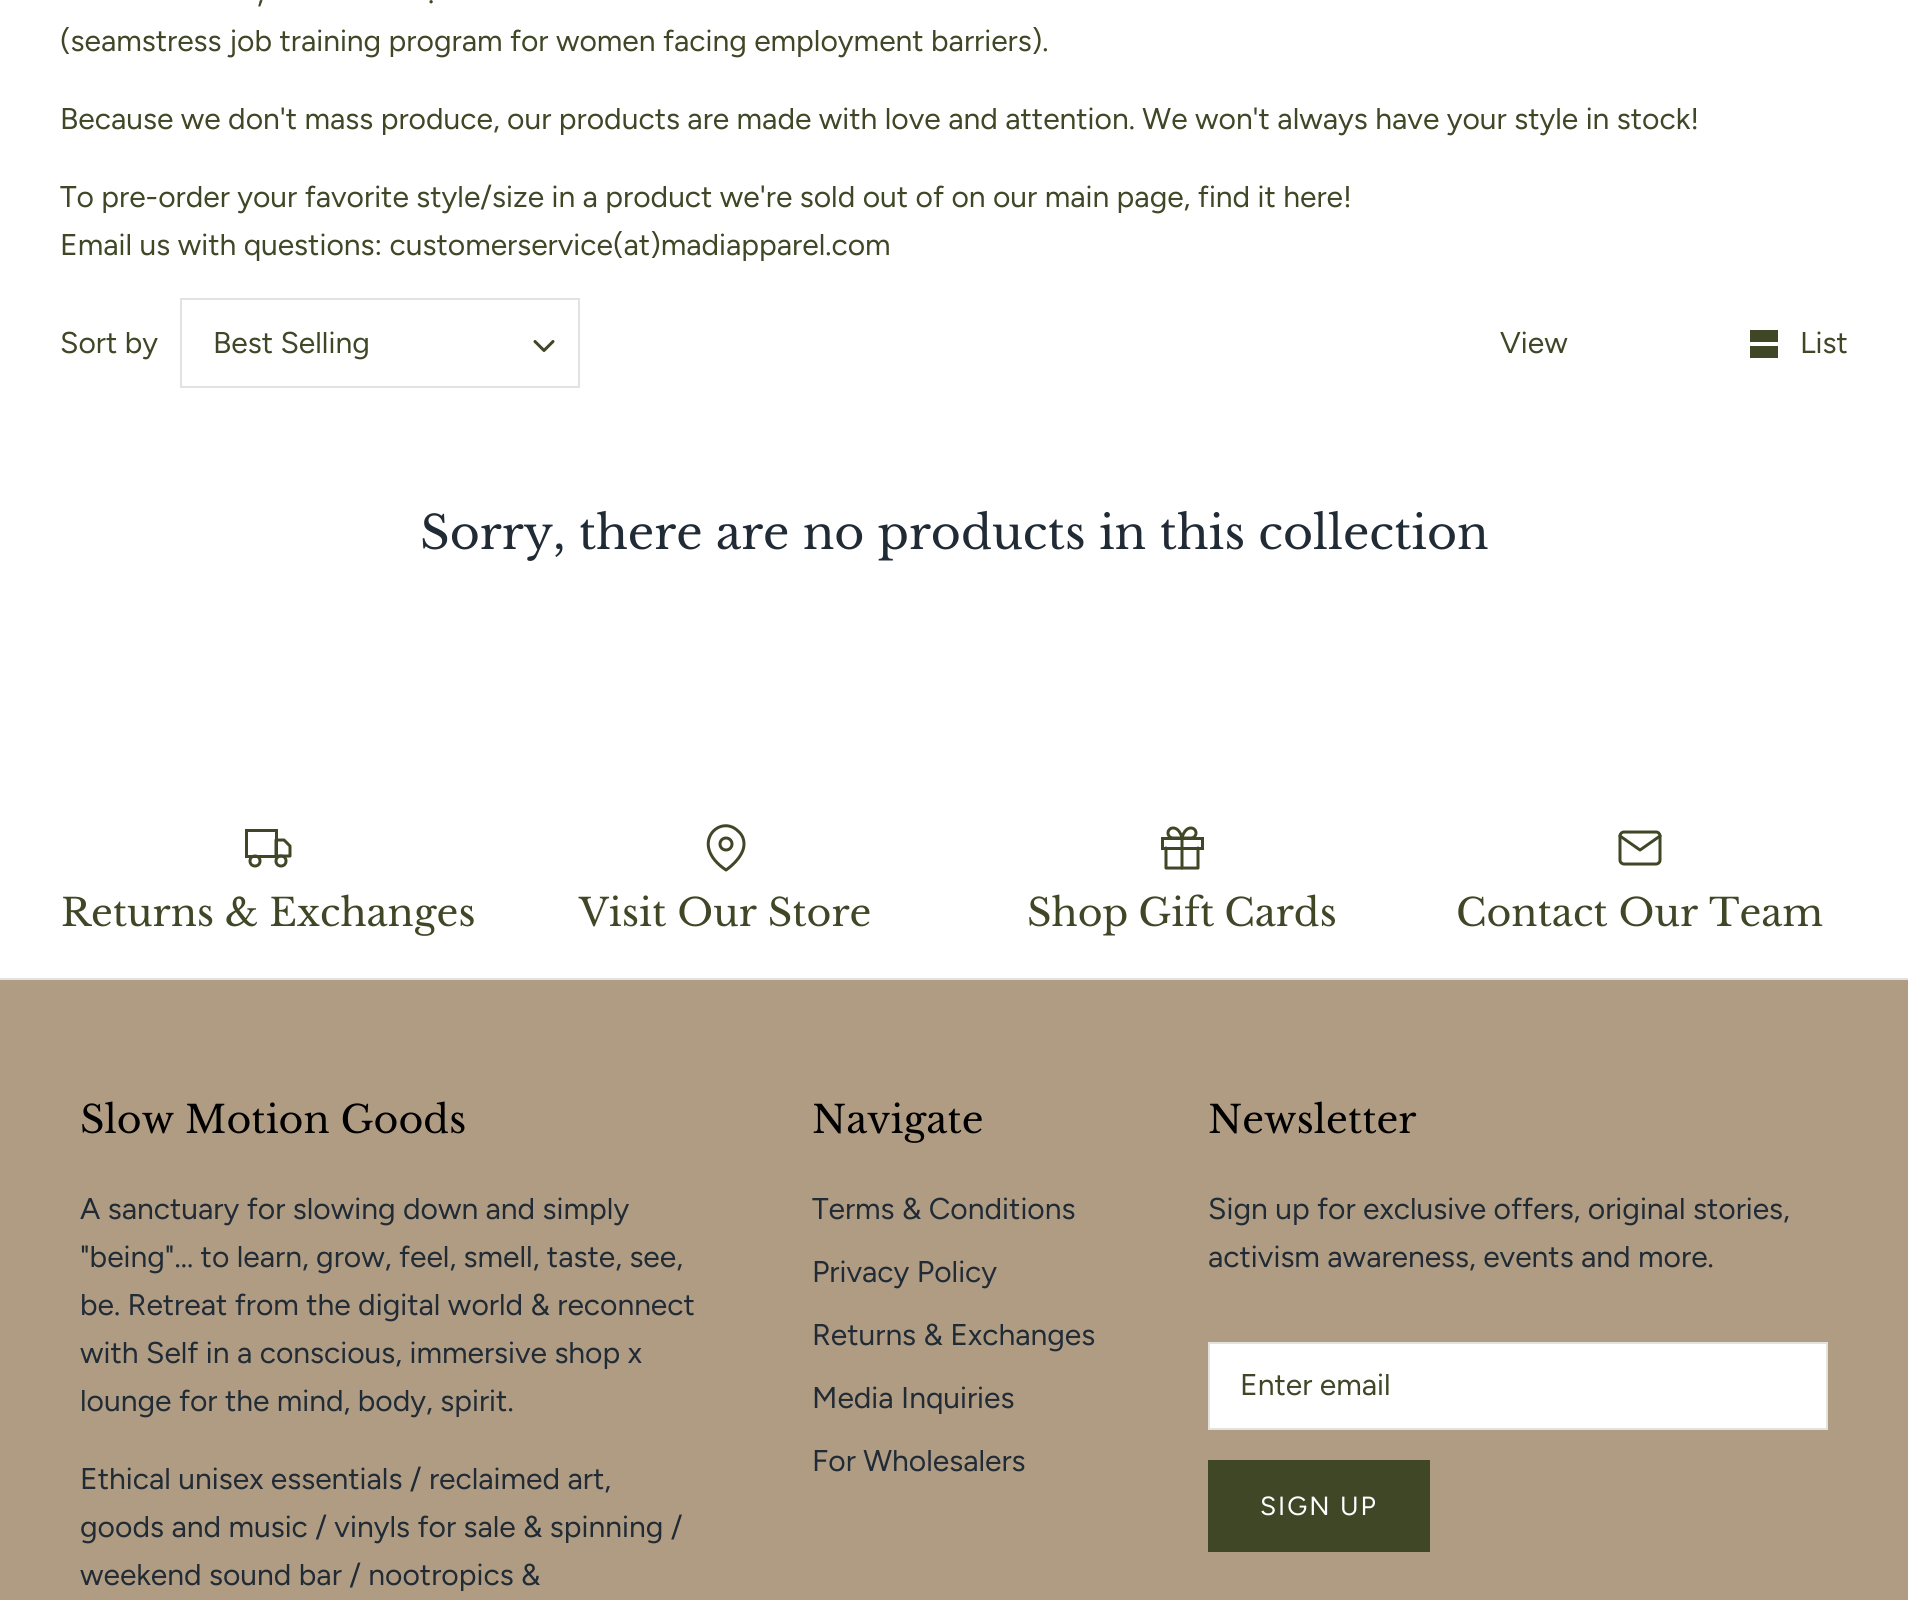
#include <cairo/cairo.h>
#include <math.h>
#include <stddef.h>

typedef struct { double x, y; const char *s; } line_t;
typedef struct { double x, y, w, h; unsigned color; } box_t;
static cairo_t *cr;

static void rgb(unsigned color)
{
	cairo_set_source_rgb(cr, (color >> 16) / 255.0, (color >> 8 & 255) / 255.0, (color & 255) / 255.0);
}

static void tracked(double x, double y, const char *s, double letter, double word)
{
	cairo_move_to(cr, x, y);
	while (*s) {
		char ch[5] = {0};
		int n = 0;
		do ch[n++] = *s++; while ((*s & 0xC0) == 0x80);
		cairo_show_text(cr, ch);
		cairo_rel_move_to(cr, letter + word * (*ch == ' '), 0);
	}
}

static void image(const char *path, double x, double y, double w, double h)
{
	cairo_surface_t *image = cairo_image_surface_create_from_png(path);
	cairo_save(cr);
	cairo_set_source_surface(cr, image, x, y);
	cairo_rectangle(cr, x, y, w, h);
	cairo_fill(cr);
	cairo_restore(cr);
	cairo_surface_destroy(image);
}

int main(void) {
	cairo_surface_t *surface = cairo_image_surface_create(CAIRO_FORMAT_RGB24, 1908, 1600);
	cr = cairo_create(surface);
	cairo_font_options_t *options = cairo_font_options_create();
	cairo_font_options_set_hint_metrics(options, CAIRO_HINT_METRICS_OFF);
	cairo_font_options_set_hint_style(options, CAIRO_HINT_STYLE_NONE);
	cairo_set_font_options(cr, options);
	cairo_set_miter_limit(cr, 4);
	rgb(0xffffff);
	cairo_paint(cr);
	cairo_rectangle(cr, 181, 299, 398, 88);
	rgb(0xe2e3de);
	cairo_stroke(cr);
	cairo_new_path(cr);
	cairo_move_to(cr, 535, 341.5);
	cairo_line_to(cr, 544, 350.5);
	cairo_line_to(cr, 553, 341.5);
	rgb(0x404726);
	cairo_set_line_width(cr, 3);
	cairo_set_line_cap(cr, CAIRO_LINE_CAP_ROUND);
	cairo_set_line_join(cr, CAIRO_LINE_JOIN_ROUND);
	cairo_stroke(cr);
	{
		static const box_t items[] = {
			{1750, 330, 28, 12, 0x404726},
			{1750, 346, 28, 12, 0x404726},
			{0, 980, 1908, 620, 0xaf9c82},
		};
		for (size_t i = 0; i < sizeof items / sizeof *items; i++) {
			rgb(items[i].color);
			cairo_rectangle(cr, items[i].x, items[i].y, items[i].w, items[i].h);
			cairo_fill(cr);
		}
	}
	cairo_rectangle(cr, 246.5, 830.5, 30, 26);
	rgb(0x404726);
	cairo_set_line_cap(cr, CAIRO_LINE_CAP_BUTT);
	cairo_set_line_join(cr, CAIRO_LINE_JOIN_MITER);
	cairo_stroke(cr);
	cairo_new_path(cr);
	cairo_move_to(cr, 276, 840);
	cairo_line_to(cr, 284, 840);
	cairo_line_to(cr, 290, 846);
	cairo_line_to(cr, 290, 856);
	cairo_line_to(cr, 276, 856);
	cairo_close_path(cr);
	cairo_set_line_cap(cr, CAIRO_LINE_CAP_ROUND);
	cairo_set_line_join(cr, CAIRO_LINE_JOIN_ROUND);
	cairo_stroke(cr);
	cairo_arc(cr, 255, 861, 5, 0, 2 * M_PI);
	cairo_set_line_cap(cr, CAIRO_LINE_CAP_BUTT);
	cairo_set_line_join(cr, CAIRO_LINE_JOIN_MITER);
	cairo_stroke(cr);
	cairo_arc(cr, 281, 861, 5, 0, 2 * M_PI);
	cairo_stroke(cr);
	cairo_new_path(cr);
	cairo_move_to(cr, 744, 844);
	cairo_curve_to(cr, 744, 858, 726, 870, 726, 870);
	cairo_curve_to(cr, 688, 844.5, 720, 812.5, 738.5, 831.5);
	cairo_curve_to(cr, 742, 834.5, 744, 839, 744, 844);
	cairo_close_path(cr);
	cairo_set_line_cap(cr, CAIRO_LINE_CAP_ROUND);
	cairo_set_line_join(cr, CAIRO_LINE_JOIN_ROUND);
	cairo_stroke(cr);
	cairo_arc(cr, 726, 844, 6, 0, 2 * M_PI);
	cairo_set_line_cap(cr, CAIRO_LINE_CAP_BUTT);
	cairo_set_line_join(cr, CAIRO_LINE_JOIN_MITER);
	cairo_stroke(cr);
	image("img/1.png", 1161, 826, 43, 44);
	image("img/2.png", 1618, 830, 44, 36);
	rgb(0xe2e2e2);
	cairo_rectangle(cr, 0, 978, 1908, 2);
	cairo_fill(cr);
	rgb(0xffffff);
	cairo_rectangle(cr, 1209, 1343, 618, 86);
	cairo_fill_preserve(cr);
	rgb(0xe2e3de);
	cairo_set_line_width(cr, 2);
	cairo_stroke(cr);
	rgb(0x404726);
	cairo_rectangle(cr, 1208, 1460, 222, 92);
	cairo_fill(cr);
	cairo_select_font_face(cr, "Figtree", CAIRO_FONT_SLANT_NORMAL, CAIRO_FONT_WEIGHT_NORMAL);
	cairo_set_font_size(cr, 30);
	{
		static const line_t items[] = {
			{257, 3, ","},
			{428, 3, "."},
			{60, 51, "(seamstress job training program for women facing employment barriers)."},
			{60, 129, "Because we don't mass produce, our products are made with love and attention. We won't always have your style in stock!"},
			{60, 207, "To pre-order your favorite style/size in a product we're sold out of on our main page, find it here!"},
			{60, 255, "Email us with questions: customerservice(at)madiapparel.com"},
			{60, 353, "Sort by"},
			{213, 353, "Best Selling"},
			{1500, 353, "View"},
			{1800, 353, "List"},
		};
		for (size_t i = 0; i < sizeof items / sizeof *items; i++) {
			cairo_move_to(cr, items[i].x, items[i].y);
			cairo_show_text(cr, items[i].s);
		}
	}
	cairo_select_font_face(cr, "Libre Baskerville", CAIRO_FONT_SLANT_NORMAL, CAIRO_FONT_WEIGHT_NORMAL);
	cairo_set_font_size(cr, 46);
	rgb(0x212b36);
	cairo_move_to(cr, 420, 549);
	cairo_show_text(cr, "Sorry, there are no products in this collection");
	cairo_set_font_size(cr, 38);
	rgb(0x404726);
	cairo_move_to(cr, 61, 926);
	cairo_show_text(cr, "Returns & Exchanges");
	cairo_move_to(cr, 579, 926);
	cairo_show_text(cr, "Visit Our Store");
	tracked(1027, 926, "Shop Gift Cards", 0, -1);
	cairo_move_to(cr, 1456, 926);
	cairo_show_text(cr, "Contact Our Team");
	rgb(0x000000);
	cairo_move_to(cr, 80, 1133);
	cairo_show_text(cr, "Slow Motion Goods");
	cairo_select_font_face(cr, "Figtree", CAIRO_FONT_SLANT_NORMAL, CAIRO_FONT_WEIGHT_NORMAL);
	cairo_set_font_size(cr, 30);
	rgb(0x212b36);
	{
		static const line_t items[] = {
			{80, 1219, "A sanctuary for slowing down and simply"},
			{80, 1267, "\"being\"... to learn, grow, feel, smell, taste, see,"},
			{80, 1315, "be. Retreat from the digital world & reconnect"},
			{80, 1363, "with Self in a conscious, immersive shop x"},
			{80, 1411, "lounge for the mind, body, spirit."},
			{80, 1489, "Ethical unisex essentials / reclaimed art,"},
			{80, 1537, "goods and music / vinyls for sale & spinning /"},
			{80, 1585, "weekend sound bar / nootropics &"},
		};
		for (size_t i = 0; i < sizeof items / sizeof *items; i++) {
			cairo_move_to(cr, items[i].x, items[i].y);
			cairo_show_text(cr, items[i].s);
		}
	}
	cairo_select_font_face(cr, "Libre Baskerville", CAIRO_FONT_SLANT_NORMAL, CAIRO_FONT_WEIGHT_NORMAL);
	cairo_set_font_size(cr, 38);
	rgb(0x000000);
	cairo_move_to(cr, 812, 1133);
	cairo_show_text(cr, "Navigate");
	cairo_select_font_face(cr, "Figtree", CAIRO_FONT_SLANT_NORMAL, CAIRO_FONT_WEIGHT_NORMAL);
	cairo_set_font_size(cr, 30);
	rgb(0x212b36);
	{
		static const line_t items[] = {
			{812, 1219, "Terms & Conditions"},
			{812, 1282, "Privacy Policy"},
			{812, 1345, "Returns & Exchanges"},
			{812, 1408, "Media Inquiries"},
			{812, 1471, "For Wholesalers"},
		};
		for (size_t i = 0; i < sizeof items / sizeof *items; i++) {
			cairo_move_to(cr, items[i].x, items[i].y);
			cairo_show_text(cr, items[i].s);
		}
	}
	cairo_select_font_face(cr, "Libre Baskerville", CAIRO_FONT_SLANT_NORMAL, CAIRO_FONT_WEIGHT_NORMAL);
	cairo_set_font_size(cr, 38);
	rgb(0x000000);
	cairo_move_to(cr, 1208, 1133);
	cairo_show_text(cr, "Newsletter");
	cairo_select_font_face(cr, "Figtree", CAIRO_FONT_SLANT_NORMAL, CAIRO_FONT_WEIGHT_NORMAL);
	cairo_set_font_size(cr, 30);
	rgb(0x212b36);
	cairo_move_to(cr, 1208, 1219);
	cairo_show_text(cr, "Sign up for exclusive offers, original stories,");
	cairo_move_to(cr, 1208, 1267);
	cairo_show_text(cr, "activism awareness, events and more.");
	rgb(0x404726);
	cairo_move_to(cr, 1240, 1395);
	cairo_show_text(cr, "Enter email");
	cairo_set_font_size(cr, 26.25);
	rgb(0xffffff);
	tracked(1260, 1515, "SIGN UP", 2, 0);
	cairo_surface_write_to_png(surface, "page.png");
	cairo_font_options_destroy(options);
	cairo_destroy(cr);
	cairo_surface_destroy(surface);
	return 0;
}
